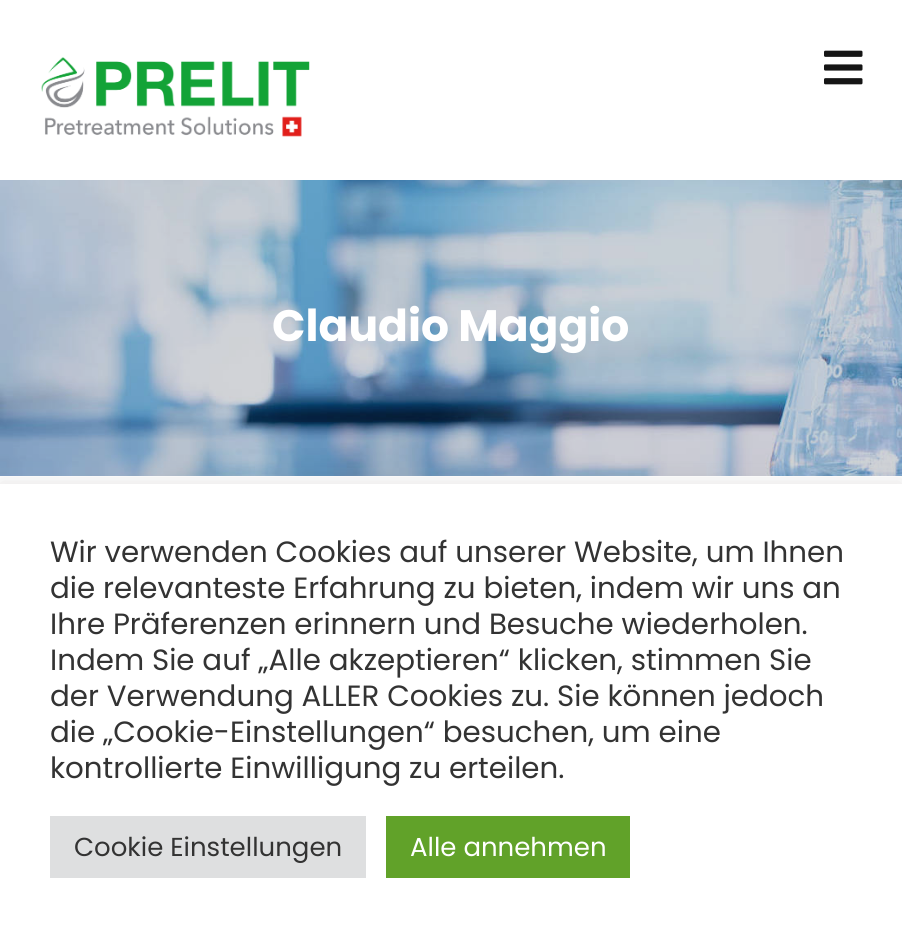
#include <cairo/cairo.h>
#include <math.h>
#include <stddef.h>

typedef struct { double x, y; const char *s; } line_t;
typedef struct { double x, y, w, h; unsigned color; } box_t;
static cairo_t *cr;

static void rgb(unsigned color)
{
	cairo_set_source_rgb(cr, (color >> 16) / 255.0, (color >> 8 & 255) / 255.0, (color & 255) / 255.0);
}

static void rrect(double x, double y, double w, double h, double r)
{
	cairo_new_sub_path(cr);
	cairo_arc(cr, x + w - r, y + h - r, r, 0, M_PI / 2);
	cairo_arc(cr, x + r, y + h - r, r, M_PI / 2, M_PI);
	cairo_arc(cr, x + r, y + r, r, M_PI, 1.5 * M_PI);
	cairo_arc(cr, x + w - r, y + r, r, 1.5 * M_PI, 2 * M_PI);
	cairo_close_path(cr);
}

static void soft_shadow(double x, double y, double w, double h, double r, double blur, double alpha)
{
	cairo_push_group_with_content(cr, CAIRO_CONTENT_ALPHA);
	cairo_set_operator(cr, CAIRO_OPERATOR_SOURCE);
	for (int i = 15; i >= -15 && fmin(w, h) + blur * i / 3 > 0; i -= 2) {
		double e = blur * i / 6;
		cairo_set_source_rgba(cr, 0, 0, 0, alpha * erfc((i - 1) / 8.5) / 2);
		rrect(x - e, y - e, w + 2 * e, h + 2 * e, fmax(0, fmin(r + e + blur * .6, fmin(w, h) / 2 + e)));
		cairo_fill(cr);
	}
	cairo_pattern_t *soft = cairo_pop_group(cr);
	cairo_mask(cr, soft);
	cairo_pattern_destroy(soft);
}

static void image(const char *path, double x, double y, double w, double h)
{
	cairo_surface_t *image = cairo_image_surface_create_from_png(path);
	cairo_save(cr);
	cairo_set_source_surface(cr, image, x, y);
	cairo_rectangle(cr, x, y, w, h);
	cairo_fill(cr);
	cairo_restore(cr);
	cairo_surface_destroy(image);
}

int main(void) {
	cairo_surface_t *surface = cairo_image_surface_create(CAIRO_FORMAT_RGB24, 902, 937);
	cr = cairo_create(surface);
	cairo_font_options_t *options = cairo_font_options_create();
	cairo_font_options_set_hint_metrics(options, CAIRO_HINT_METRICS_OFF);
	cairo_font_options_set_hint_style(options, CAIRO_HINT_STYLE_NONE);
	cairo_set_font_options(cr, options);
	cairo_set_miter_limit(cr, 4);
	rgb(0xffffff);
	cairo_paint(cr);
	image("img/1.png", 41, 57, 269, 80);
	image("img/2.png", 824, 50, 39, 35);
	image("img/3.png", 0, 180, 902, 296);
	rgb(0xacabab);
	soft_shadow(0, 482, 902, 454, 0, 10, 0.3);
	{
		static const box_t items[] = {
			{0, 484, 902, 453, 0xffffff},
			{50, 816, 316, 62, 0xdedfe0},
			{386, 816, 244, 62, 0x61a229},
		};
		for (size_t i = 0; i < sizeof items / sizeof *items; i++) {
			rgb(items[i].color);
			cairo_rectangle(cr, items[i].x, items[i].y, items[i].w, items[i].h);
			cairo_fill(cr);
		}
	}
	cairo_select_font_face(cr, "Poppins", CAIRO_FONT_SLANT_NORMAL, CAIRO_FONT_WEIGHT_BOLD);
	cairo_set_font_size(cr, 44);
	rgb(0xffffff);
	cairo_move_to(cr, 272, 341);
	cairo_show_text(cr, "Claudio Maggio");
	cairo_select_font_face(cr, "Poppins", CAIRO_FONT_SLANT_NORMAL, CAIRO_FONT_WEIGHT_NORMAL);
	cairo_set_font_size(cr, 29.3);
	rgb(0x333333);
	{
		static const line_t items[] = {
			{50, 562, "Wir verwenden Cookies auf unserer Website, um Ihnen"},
			{50, 598, "die relevanteste Erfahrung zu bieten, indem wir uns an"},
			{50, 634, "Ihre Präferenzen erinnern und Besuche wiederholen."},
			{50, 670, "Indem Sie auf „Alle akzeptieren“ klicken, stimmen Sie"},
			{50, 706, "der Verwendung ALLER Cookies zu. Sie können jedoch"},
			{50, 742, "die „Cookie-Einstellungen“ besuchen, um eine"},
			{50, 778, "kontrollierte Einwilligung zu erteilen."},
		};
		for (size_t i = 0; i < sizeof items / sizeof *items; i++) {
			cairo_move_to(cr, items[i].x, items[i].y);
			cairo_show_text(cr, items[i].s);
		}
	}
	cairo_set_font_size(cr, 26);
	cairo_move_to(cr, 74, 856);
	cairo_show_text(cr, "Cookie Einstellungen");
	rgb(0xffffff);
	cairo_move_to(cr, 410, 856);
	cairo_show_text(cr, "Alle annehmen");
	cairo_surface_write_to_png(surface, "page.png");
	cairo_font_options_destroy(options);
	cairo_destroy(cr);
	cairo_surface_destroy(surface);
	return 0;
}
